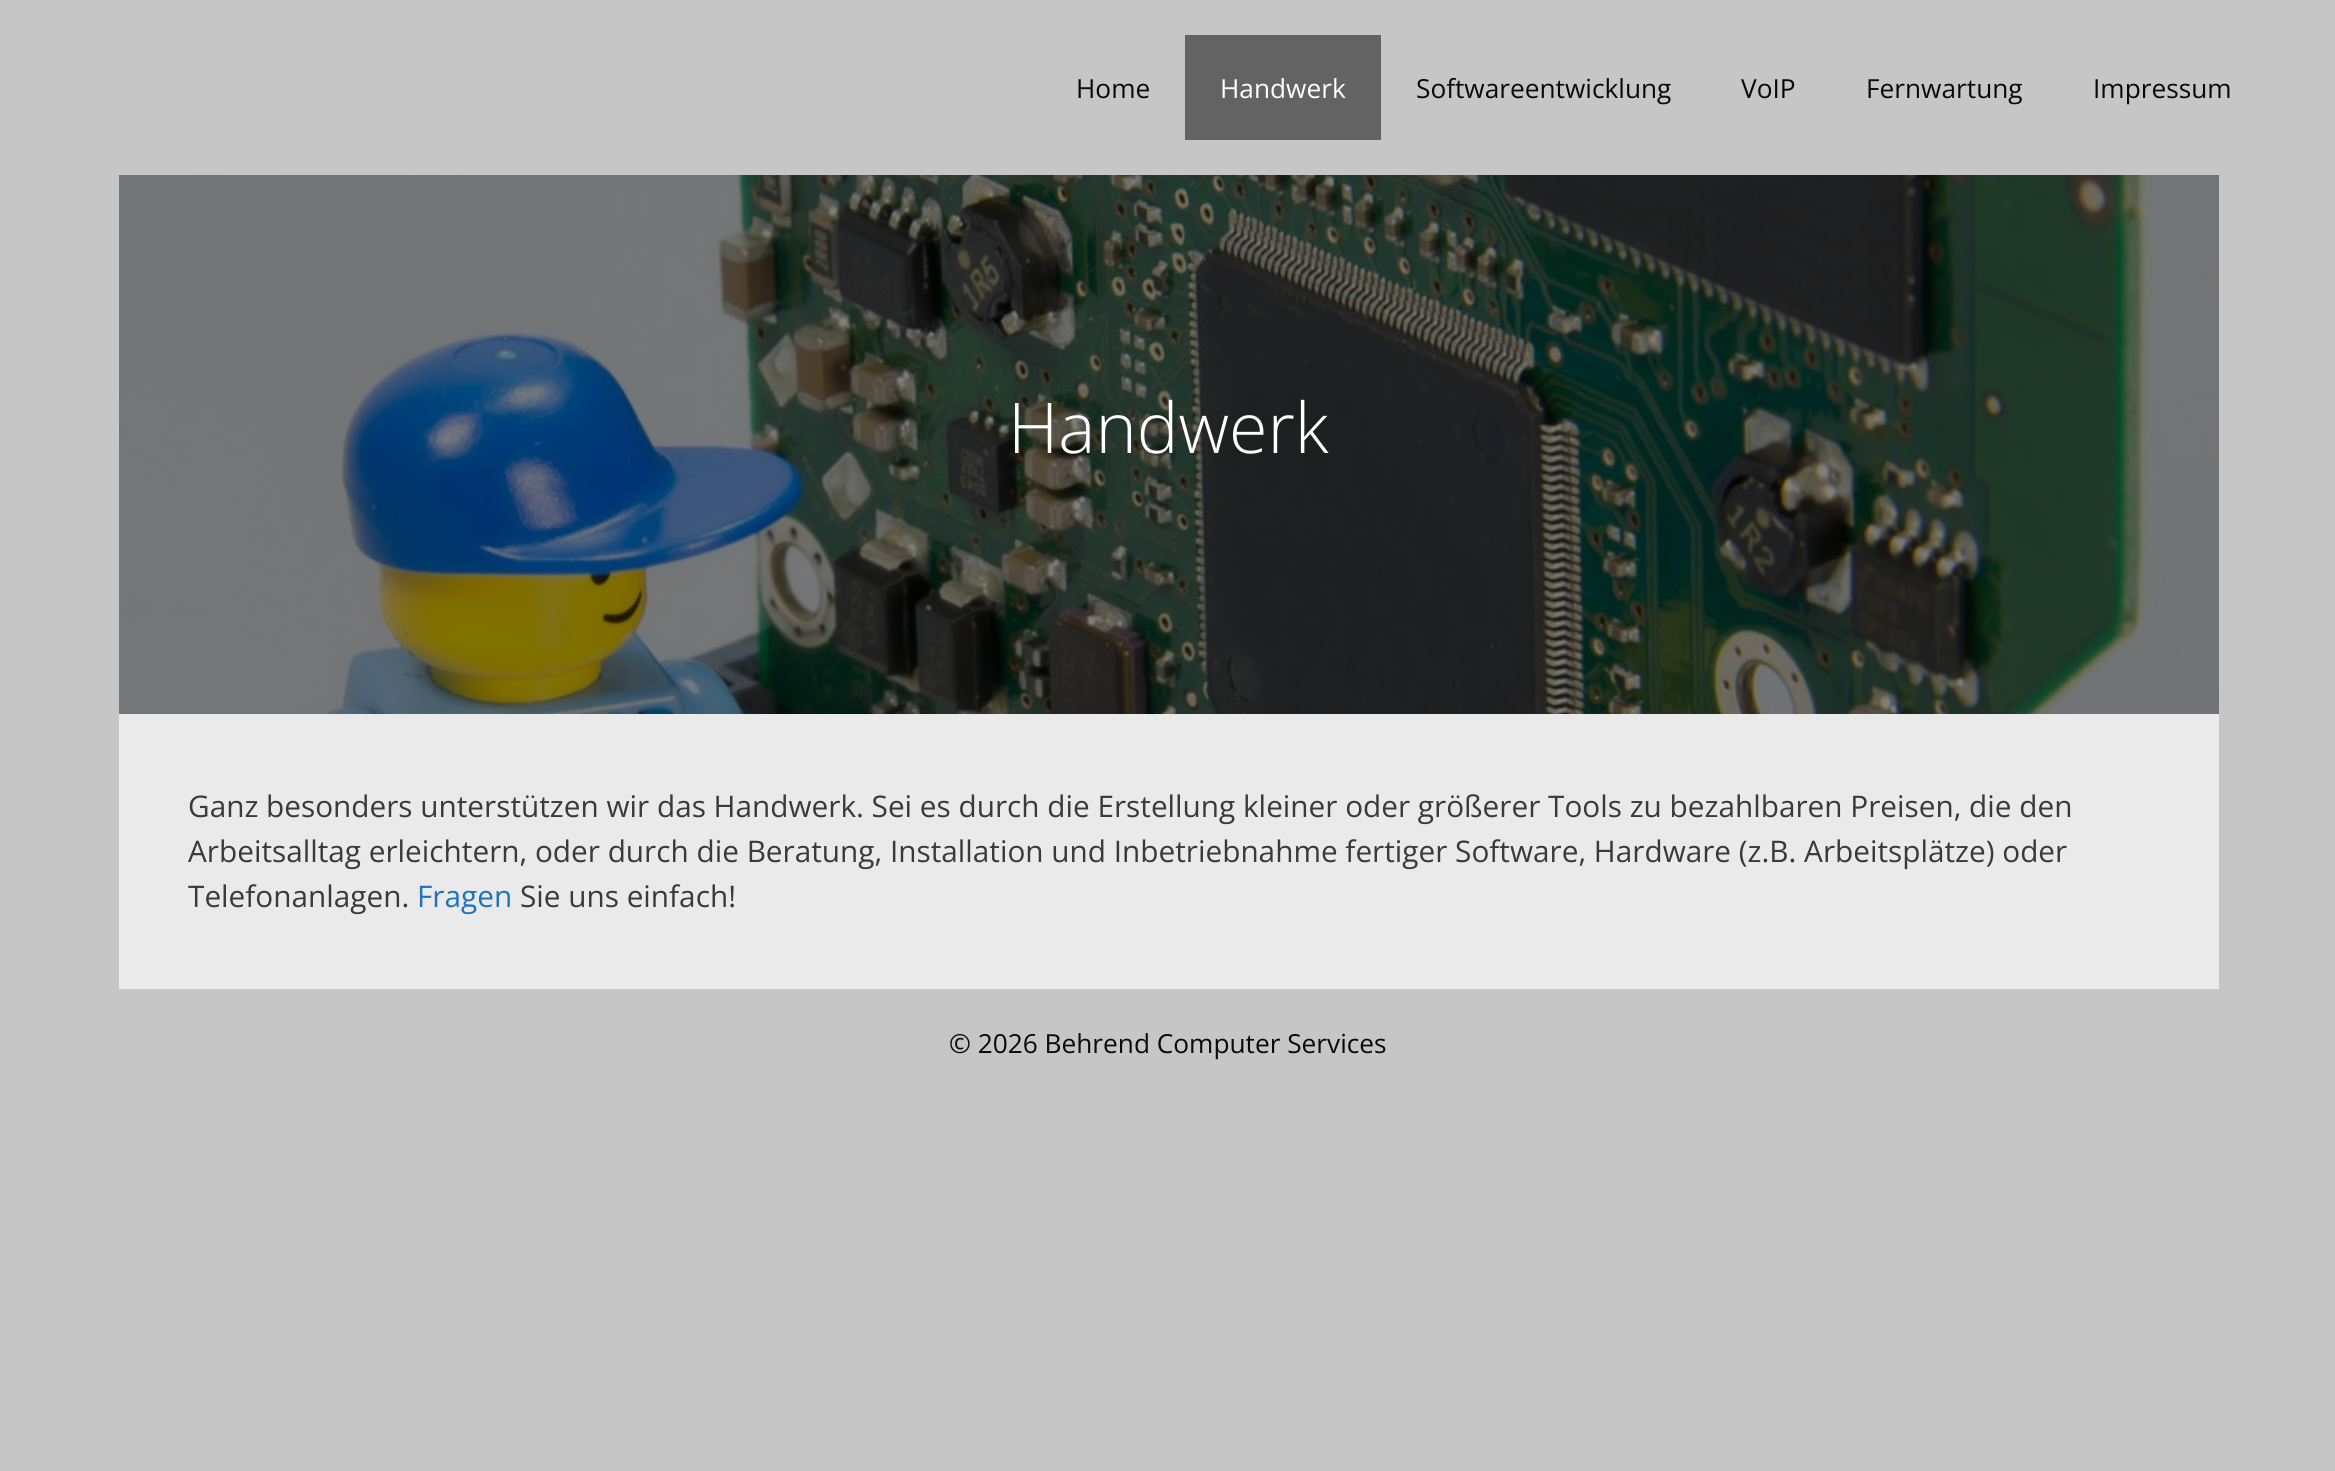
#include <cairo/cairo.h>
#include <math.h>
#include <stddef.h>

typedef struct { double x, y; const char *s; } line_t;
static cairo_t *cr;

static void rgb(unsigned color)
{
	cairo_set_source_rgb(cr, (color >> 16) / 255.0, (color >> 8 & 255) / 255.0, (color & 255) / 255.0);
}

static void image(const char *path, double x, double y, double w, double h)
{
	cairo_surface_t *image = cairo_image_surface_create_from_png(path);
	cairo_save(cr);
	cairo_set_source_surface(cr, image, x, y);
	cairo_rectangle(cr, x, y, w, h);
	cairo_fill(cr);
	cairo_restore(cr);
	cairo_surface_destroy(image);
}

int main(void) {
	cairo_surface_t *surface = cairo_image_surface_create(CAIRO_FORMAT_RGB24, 2335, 1471);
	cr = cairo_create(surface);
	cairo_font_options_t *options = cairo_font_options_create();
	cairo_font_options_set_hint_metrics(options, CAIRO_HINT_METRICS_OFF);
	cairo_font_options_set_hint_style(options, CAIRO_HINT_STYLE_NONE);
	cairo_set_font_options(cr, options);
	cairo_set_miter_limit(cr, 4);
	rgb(0xc6c6c6);
	cairo_paint(cr);
	rgb(0x636363);
	cairo_rectangle(cr, 1185, 35, 196, 105);
	cairo_fill(cr);
	image("img/1.png", 119, 175, 2100, 539);
	rgb(0xeaeaea);
	cairo_rectangle(cr, 119, 714, 2100, 275);
	cairo_fill(cr);
	cairo_select_font_face(cr, "Open Sans", CAIRO_FONT_SLANT_NORMAL, CAIRO_FONT_WEIGHT_NORMAL);
	cairo_set_font_size(cr, 26.25);
	rgb(0x0a0a0a);
	cairo_move_to(cr, 1076, 98);
	cairo_show_text(cr, "Home");
	rgb(0xffffff);
	cairo_move_to(cr, 1220, 98);
	cairo_show_text(cr, "Handwerk");
	rgb(0x0a0a0a);
	{
		static const line_t items[] = {
			{1416, 98, "Softwareentwicklung"},
			{1741, 98, "VoIP"},
			{1866, 98, "Fernwartung"},
			{2093, 98, "Impressum"},
		};
		for (size_t i = 0; i < sizeof items / sizeof *items; i++) {
			cairo_move_to(cr, items[i].x, items[i].y);
			cairo_show_text(cr, items[i].s);
		}
	}
	cairo_select_font_face(cr, "Open Sans Light", CAIRO_FONT_SLANT_NORMAL, CAIRO_FONT_WEIGHT_NORMAL);
	cairo_set_font_size(cr, 70);
	rgb(0xffffff);
	cairo_move_to(cr, 1008, 453);
	cairo_show_text(cr, "Handwerk");
	cairo_select_font_face(cr, "Open Sans", CAIRO_FONT_SLANT_NORMAL, CAIRO_FONT_WEIGHT_NORMAL);
	cairo_set_font_size(cr, 29.75);
	rgb(0x3a3a3a);
	{
		static const line_t items[] = {
			{188, 817, "Ganz besonders unterstützen wir das Handwerk. Sei es durch die Erstellung kleiner oder größerer Tools zu bezahlbaren Preisen, die den"},
			{188, 862, "Arbeitsalltag erleichtern, oder durch die Beratung, Installation und Inbetriebnahme fertiger Software, Hardware (z.B. Arbeitsplätze) oder"},
			{188, 907, "Telefonanlagen."},
		};
		for (size_t i = 0; i < sizeof items / sizeof *items; i++) {
			cairo_move_to(cr, items[i].x, items[i].y);
			cairo_show_text(cr, items[i].s);
		}
	}
	rgb(0x1e73be);
	cairo_move_to(cr, 417, 907);
	cairo_show_text(cr, "Fragen");
	rgb(0x3a3a3a);
	cairo_move_to(cr, 520, 907);
	cairo_show_text(cr, "Sie uns einfach!");
	cairo_set_font_size(cr, 26.25);
	rgb(0x0a0a0a);
	cairo_move_to(cr, 949, 1053);
	cairo_show_text(cr, "© 2026 Behrend Computer Services");
	cairo_surface_write_to_png(surface, "page.png");
	cairo_font_options_destroy(options);
	cairo_destroy(cr);
	cairo_surface_destroy(surface);
	return 0;
}
